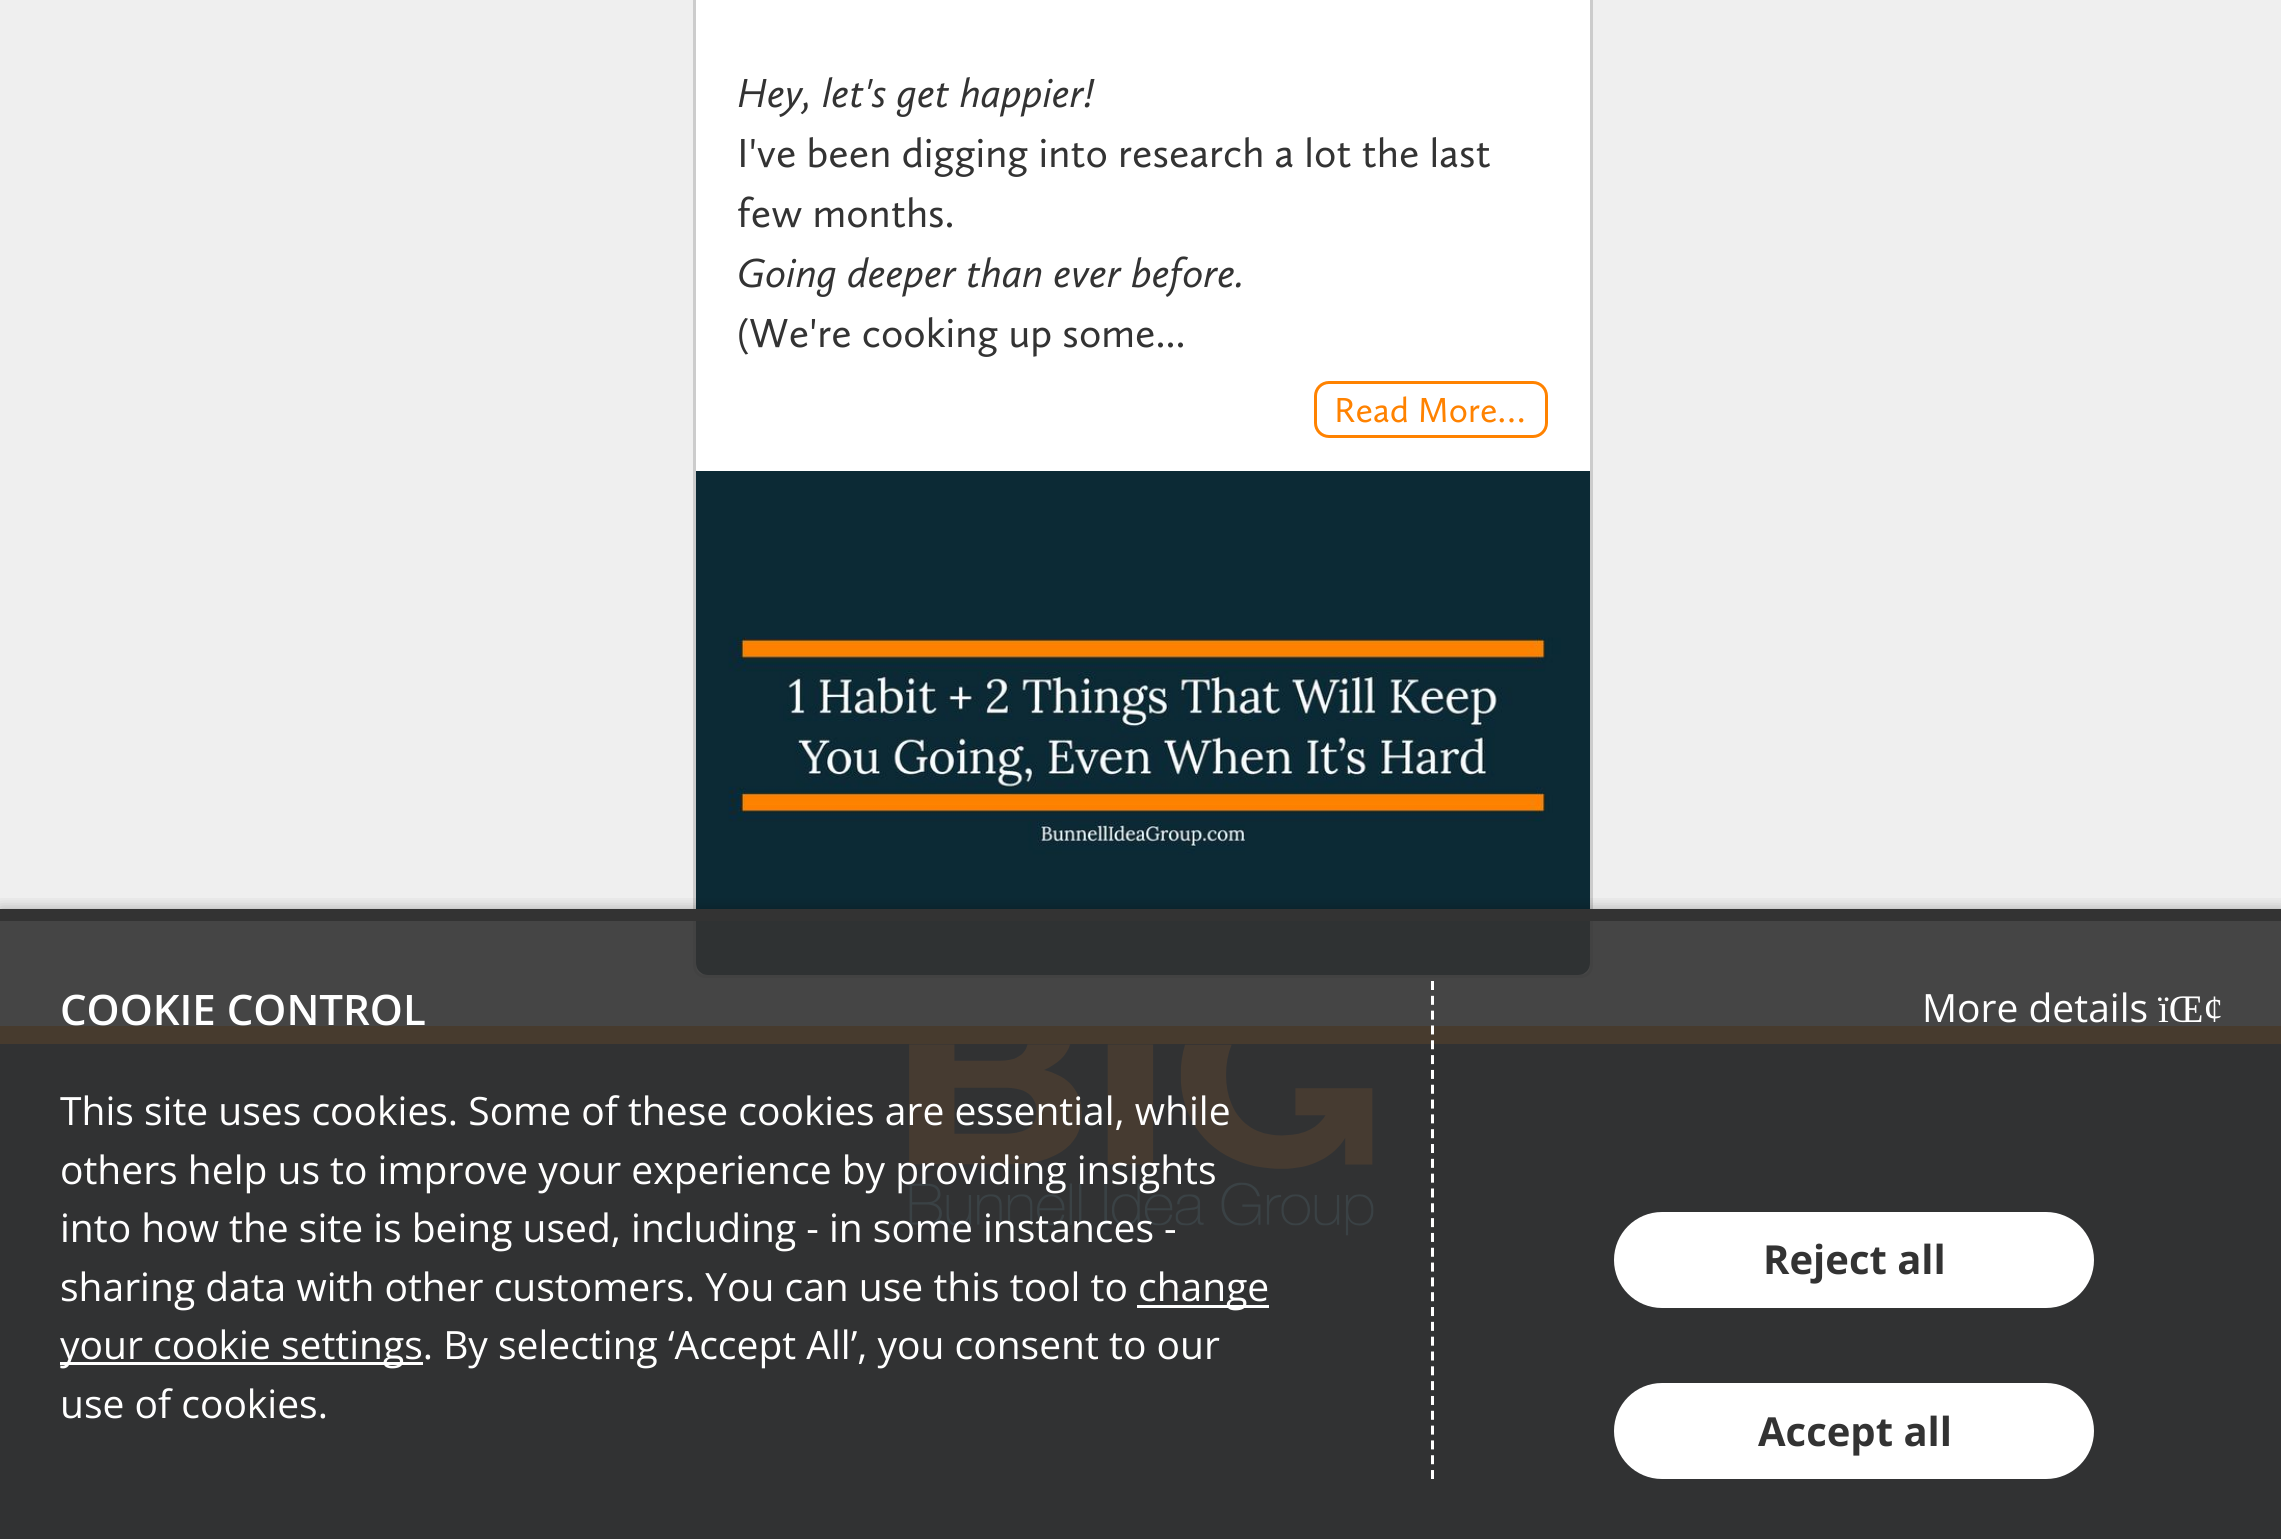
#include <cairo/cairo.h>
#include <math.h>
#include <stddef.h>

typedef struct { double x, y; const char *s; } line_t;
static cairo_t *cr;

static void rgb(unsigned color)
{
	cairo_set_source_rgb(cr, (color >> 16) / 255.0, (color >> 8 & 255) / 255.0, (color & 255) / 255.0);
}

static void rrect(double x, double y, double w, double h, double r)
{
	cairo_new_sub_path(cr);
	cairo_arc(cr, x + w - r, y + h - r, r, 0, M_PI / 2);
	cairo_arc(cr, x + r, y + h - r, r, M_PI / 2, M_PI);
	cairo_arc(cr, x + r, y + r, r, M_PI, 1.5 * M_PI);
	cairo_arc(cr, x + w - r, y + r, r, 1.5 * M_PI, 2 * M_PI);
	cairo_close_path(cr);
}

static void soft_shadow(double x, double y, double w, double h, double r, double blur, double alpha)
{
	cairo_push_group_with_content(cr, CAIRO_CONTENT_ALPHA);
	cairo_set_operator(cr, CAIRO_OPERATOR_SOURCE);
	for (int i = 15; i >= -15 && fmin(w, h) + blur * i / 3 > 0; i -= 2) {
		double e = blur * i / 6;
		cairo_set_source_rgba(cr, 0, 0, 0, alpha * erfc((i - 1) / 8.5) / 2);
		rrect(x - e, y - e, w + 2 * e, h + 2 * e, fmax(0, fmin(r + e + blur * .6, fmin(w, h) / 2 + e)));
		cairo_fill(cr);
	}
	cairo_pattern_t *soft = cairo_pop_group(cr);
	cairo_mask(cr, soft);
	cairo_pattern_destroy(soft);
}

static void image(const char *path, double x, double y, double w, double h)
{
	cairo_surface_t *image = cairo_image_surface_create_from_png(path);
	cairo_save(cr);
	cairo_set_source_surface(cr, image, x, y);
	cairo_rectangle(cr, x, y, w, h);
	cairo_fill(cr);
	cairo_restore(cr);
	cairo_surface_destroy(image);
}

int main(void) {
	cairo_surface_t *surface = cairo_image_surface_create(CAIRO_FORMAT_RGB24, 2281, 1539);
	cr = cairo_create(surface);
	cairo_font_options_t *options = cairo_font_options_create();
	cairo_font_options_set_hint_metrics(options, CAIRO_HINT_METRICS_OFF);
	cairo_font_options_set_hint_style(options, CAIRO_HINT_STYLE_NONE);
	cairo_set_font_options(cr, options);
	cairo_set_miter_limit(cr, 4);
	rgb(0xefefef);
	cairo_paint(cr);
	rgb(0xffffff);
	rrect(694.5, -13.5, 897, 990, 10.5);
	cairo_fill_preserve(cr);
	rgb(0xcccccc);
	cairo_set_line_width(cr, 3);
	cairo_stroke(cr);
	rrect(1315.5, 382.5, 231, 54, 13.5);
	rgb(0xff8200);
	cairo_stroke(cr);
	image("img/1.png", 696, 471, 894, 504);
	rgb(0x232b36);
	cairo_rectangle(cr, 0, 1044, 2281, 495);
	cairo_fill(cr);
	rgb(0xff8200);
	cairo_rectangle(cr, 0, 1026, 2281, 18);
	cairo_fill(cr);
	image("img/2.png", 909, 1044, 465, 192);
	cairo_save(cr);
	cairo_rectangle(cr, 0, 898, 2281, 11);
	cairo_clip(cr);
	rgb(0x000000);
	soft_shadow(0, 909, 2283, 630, 0, 7.5, 0.3);
	cairo_restore(cr);
	cairo_set_source_rgba(cr, 0.2, 0.2, 0.2, 0.9);
	cairo_rectangle(cr, 0, 921, 2281, 618);
	cairo_fill(cr);
	rgb(0x333333);
	cairo_rectangle(cr, 0, 909, 2281, 12);
	cairo_fill(cr);
	cairo_new_path(cr);
	cairo_move_to(cr, 1432.5, 981);
	cairo_line_to(cr, 1432.5, 1479);
	rgb(0xffffff);
	cairo_set_dash(cr, (double[]){9, 5.82}, 2, 0);
	cairo_stroke(cr);
	cairo_rectangle(cr, 1137, 1305, 132, 3);
	cairo_fill(cr);
	cairo_rectangle(cr, 60, 1362, 363, 3);
	cairo_fill(cr);
	rrect(1614, 1212, 480, 96, 48);
	cairo_fill(cr);
	rrect(1614, 1383, 480, 96, 48);
	cairo_fill(cr);
	cairo_select_font_face(cr, "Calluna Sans", CAIRO_FONT_SLANT_ITALIC, CAIRO_FONT_WEIGHT_NORMAL);
	cairo_set_font_size(cr, 42);
	rgb(0x333333);
	cairo_move_to(cr, 737, 107);
	cairo_show_text(cr, "Hey, let's get happier!");
	cairo_select_font_face(cr, "Calluna Sans", CAIRO_FONT_SLANT_NORMAL, CAIRO_FONT_WEIGHT_NORMAL);
	cairo_move_to(cr, 737, 167);
	cairo_show_text(cr, "I've been digging into research a lot the last");
	cairo_move_to(cr, 737, 227);
	cairo_show_text(cr, "few months.");
	cairo_select_font_face(cr, "Calluna Sans", CAIRO_FONT_SLANT_ITALIC, CAIRO_FONT_WEIGHT_NORMAL);
	cairo_move_to(cr, 737, 287);
	cairo_show_text(cr, "Going deeper than ever before.");
	cairo_select_font_face(cr, "Calluna Sans", CAIRO_FONT_SLANT_NORMAL, CAIRO_FONT_WEIGHT_NORMAL);
	cairo_move_to(cr, 737, 347);
	cairo_show_text(cr, "(We're cooking up some...");
	cairo_set_font_size(cr, 36);
	rgb(0xff8200);
	cairo_move_to(cr, 1334, 422);
	cairo_show_text(cr, "Read More…");
	cairo_select_font_face(cr, "Open Sans SemiBold", CAIRO_FONT_SLANT_NORMAL, CAIRO_FONT_WEIGHT_NORMAL);
	cairo_set_font_size(cr, 42);
	rgb(0xffffff);
	cairo_move_to(cr, 60, 1025);
	cairo_show_text(cr, "COOKIE CONTROL");
	cairo_select_font_face(cr, "Open Sans", CAIRO_FONT_SLANT_NORMAL, CAIRO_FONT_WEIGHT_NORMAL);
	cairo_set_font_size(cr, 39);
	{
		static const line_t items[] = {
			{60, 1125, "This site uses cookies. Some of these cookies are essential, while"},
			{60, 1184, "others help us to improve your experience by providing insights"},
			{60, 1242, "into how the site is being used, including - in some instances -"},
			{60, 1301, "sharing data with other customers. You can use this tool to"},
			{1138, 1301, "change"},
			{60, 1359, "your cookie settings. By selecting ‘Accept All’, you consent to our"},
			{60, 1418, "use of cookies."},
		};
		for (size_t i = 0; i < sizeof items / sizeof *items; i++) {
			cairo_move_to(cr, items[i].x, items[i].y);
			cairo_show_text(cr, items[i].s);
		}
	}
	cairo_select_font_face(cr, "Open Sans", CAIRO_FONT_SLANT_NORMAL, CAIRO_FONT_WEIGHT_BOLD);
	cairo_set_font_size(cr, 40);
	rgb(0x333333);
	cairo_move_to(cr, 1763, 1274);
	cairo_show_text(cr, "Reject all");
	cairo_move_to(cr, 1758, 1446);
	cairo_show_text(cr, "Accept all");
	cairo_select_font_face(cr, "Open Sans", CAIRO_FONT_SLANT_NORMAL, CAIRO_FONT_WEIGHT_NORMAL);
	cairo_set_font_size(cr, 39);
	rgb(0xffffff);
	cairo_move_to(cr, 1922, 1022);
	cairo_show_text(cr, "More details");
	cairo_select_font_face(cr, "Liberation Serif", CAIRO_FONT_SLANT_NORMAL, CAIRO_FONT_WEIGHT_NORMAL);
	cairo_move_to(cr, 2158, 1022);
	cairo_show_text(cr, "ïŒ¢");
	cairo_surface_write_to_png(surface, "page.png");
	cairo_font_options_destroy(options);
	cairo_destroy(cr);
	cairo_surface_destroy(surface);
	return 0;
}
